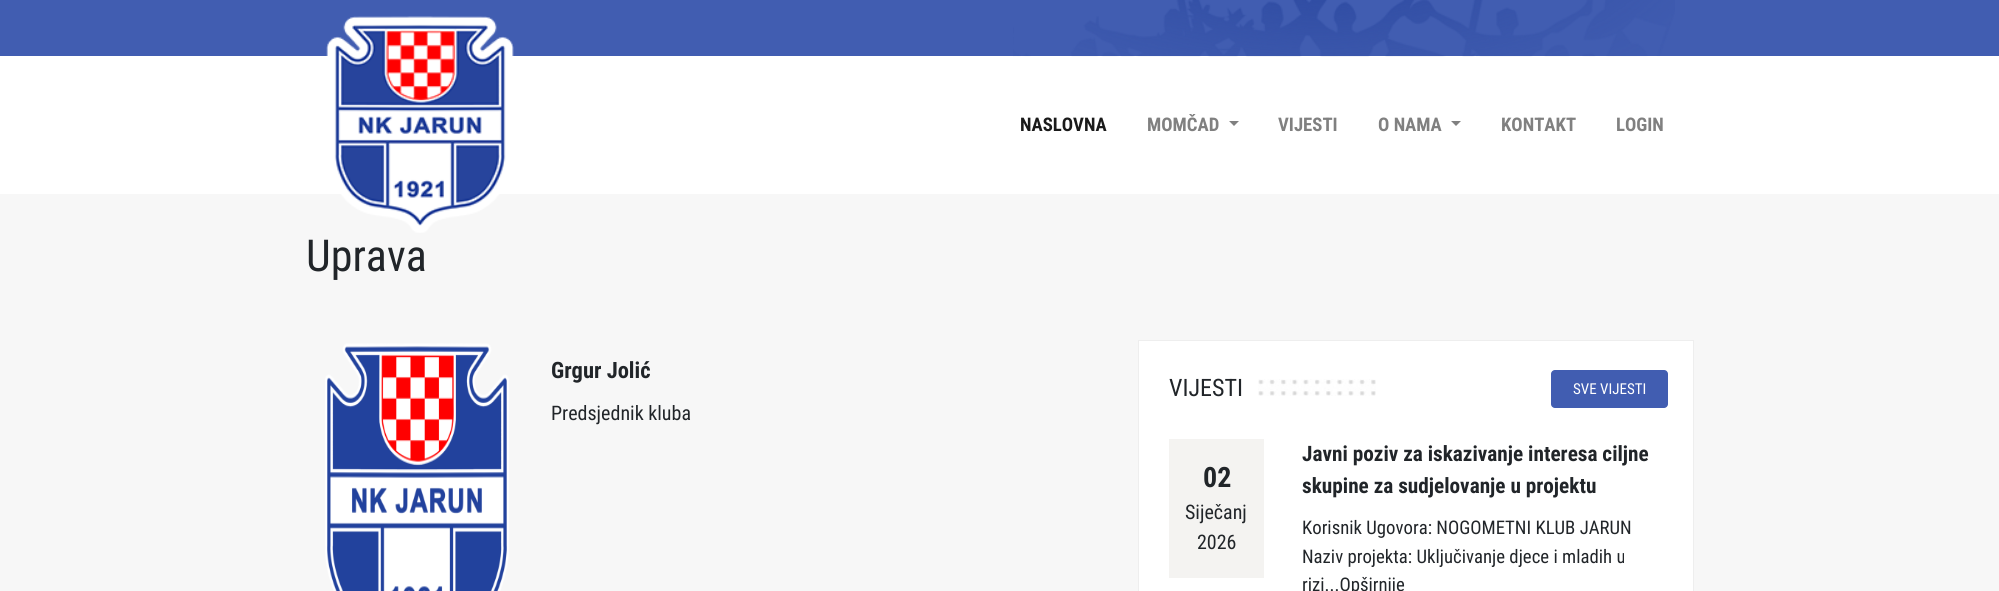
#include <cairo/cairo.h>
#include <math.h>
#include <stddef.h>

typedef struct { double x, y; const char *s; } line_t;
static cairo_t *cr;

static void rgb(unsigned color)
{
	cairo_set_source_rgb(cr, (color >> 16) / 255.0, (color >> 8 & 255) / 255.0, (color & 255) / 255.0);
}

static void rrect(double x, double y, double w, double h, double r)
{
	cairo_new_sub_path(cr);
	cairo_arc(cr, x + w - r, y + h - r, r, 0, M_PI / 2);
	cairo_arc(cr, x + r, y + h - r, r, M_PI / 2, M_PI);
	cairo_arc(cr, x + r, y + r, r, M_PI, 1.5 * M_PI);
	cairo_arc(cr, x + w - r, y + r, r, 1.5 * M_PI, 2 * M_PI);
	cairo_close_path(cr);
}

static void image(const char *path, double x, double y, double w, double h)
{
	cairo_surface_t *image = cairo_image_surface_create_from_png(path);
	cairo_save(cr);
	cairo_set_source_surface(cr, image, x, y);
	cairo_rectangle(cr, x, y, w, h);
	cairo_fill(cr);
	cairo_restore(cr);
	cairo_surface_destroy(image);
}

int main(void) {
	cairo_surface_t *surface = cairo_image_surface_create(CAIRO_FORMAT_RGB24, 1999, 591);
	cr = cairo_create(surface);
	cairo_font_options_t *options = cairo_font_options_create();
	cairo_font_options_set_hint_metrics(options, CAIRO_HINT_METRICS_OFF);
	cairo_font_options_set_hint_style(options, CAIRO_HINT_STYLE_NONE);
	cairo_set_font_options(cr, options);
	cairo_set_miter_limit(cr, 4);
	rgb(0xffffff);
	cairo_paint(cr);
	rgb(0x415db1);
	cairo_rectangle(cr, 0, 0, 1999, 56);
	cairo_fill(cr);
	image("img/1.png", 1013, 0, 662, 57);
	rgb(0xf7f7f7);
	cairo_rectangle(cr, 0, 194, 1999, 397);
	cairo_fill(cr);
	image("img/2.png", 326, 16, 188, 217);
	rgb(0x808080);
	cairo_new_path(cr);
	cairo_move_to(cr, 1229, 121);
	cairo_line_to(cr, 1239, 121);
	cairo_line_to(cr, 1234, 126);
	cairo_close_path(cr);
	cairo_fill(cr);
	cairo_new_path(cr);
	cairo_move_to(cr, 1451, 121);
	cairo_line_to(cr, 1461, 121);
	cairo_line_to(cr, 1456, 126);
	cairo_close_path(cr);
	cairo_fill(cr);
	image("img/3.png", 325, 343, 184, 248);
	rgb(0xffffff);
	cairo_rectangle(cr, 1138.5, 340.5, 555, 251);
	cairo_fill_preserve(cr);
	rgb(0xeeeeee);
	cairo_set_line_width(cr, 1);
	cairo_stroke(cr);
	image("img/4.png", 1258, 379, 118, 17);
	rgb(0x415db1);
	rrect(1551, 370, 117, 38, 4);
	cairo_fill(cr);
	rgb(0xf4f3f1);
	cairo_rectangle(cr, 1169, 439, 95, 139);
	cairo_fill(cr);
	cairo_select_font_face(cr, "Roboto Condensed", CAIRO_FONT_SLANT_NORMAL, CAIRO_FONT_WEIGHT_BOLD);
	cairo_set_font_size(cr, 18.75);
	rgb(0x1a1a1a);
	cairo_move_to(cr, 1020, 131);
	cairo_show_text(cr, "NASLOVNA");
	rgb(0x808080);
	{
		static const line_t items[] = {
			{1147, 131, "MOMČAD"},
			{1278, 131, "VIJESTI"},
			{1378, 131, "O NAMA"},
			{1501, 131, "KONTAKT"},
			{1616, 131, "LOGIN"},
		};
		for (size_t i = 0; i < sizeof items / sizeof *items; i++) {
			cairo_move_to(cr, items[i].x, items[i].y);
			cairo_show_text(cr, items[i].s);
		}
	}
	cairo_select_font_face(cr, "Roboto Condensed", CAIRO_FONT_SLANT_NORMAL, CAIRO_FONT_WEIGHT_NORMAL);
	cairo_set_font_size(cr, 44);
	rgb(0x212529);
	cairo_move_to(cr, 306, 271);
	cairo_show_text(cr, "Uprava");
	cairo_select_font_face(cr, "Roboto Condensed", CAIRO_FONT_SLANT_NORMAL, CAIRO_FONT_WEIGHT_BOLD);
	cairo_set_font_size(cr, 22.5);
	cairo_move_to(cr, 551, 378);
	cairo_show_text(cr, "Grgur Jolić");
	cairo_select_font_face(cr, "Roboto Condensed", CAIRO_FONT_SLANT_NORMAL, CAIRO_FONT_WEIGHT_NORMAL);
	cairo_set_font_size(cr, 20);
	cairo_move_to(cr, 551, 420);
	cairo_show_text(cr, "Predsjednik kluba");
	cairo_set_font_size(cr, 24);
	cairo_move_to(cr, 1169, 396);
	cairo_show_text(cr, "VIJESTI");
	cairo_set_font_size(cr, 15);
	rgb(0xffffff);
	cairo_move_to(cr, 1573, 394);
	cairo_show_text(cr, "SVE VIJESTI");
	cairo_select_font_face(cr, "Roboto Condensed", CAIRO_FONT_SLANT_NORMAL, CAIRO_FONT_WEIGHT_BOLD);
	cairo_set_font_size(cr, 28);
	rgb(0x212529);
	cairo_move_to(cr, 1203, 487);
	cairo_show_text(cr, "02");
	cairo_select_font_face(cr, "Roboto Condensed", CAIRO_FONT_SLANT_NORMAL, CAIRO_FONT_WEIGHT_NORMAL);
	cairo_set_font_size(cr, 20);
	cairo_move_to(cr, 1185, 519);
	cairo_show_text(cr, "Siječanj");
	cairo_move_to(cr, 1197, 549);
	cairo_show_text(cr, "2026");
	cairo_select_font_face(cr, "Roboto Condensed", CAIRO_FONT_SLANT_NORMAL, CAIRO_FONT_WEIGHT_BOLD);
	cairo_set_font_size(cr, 21.25);
	cairo_move_to(cr, 1302, 461);
	cairo_show_text(cr, "Javni poziv za iskazivanje interesa ciljne");
	cairo_move_to(cr, 1302, 493);
	cairo_show_text(cr, "skupine za sudjelovanje u projektu");
	cairo_select_font_face(cr, "Roboto Condensed", CAIRO_FONT_SLANT_NORMAL, CAIRO_FONT_WEIGHT_NORMAL);
	cairo_set_font_size(cr, 18.75);
	{
		static const line_t items[] = {
			{1302, 534, "Korisnik Ugovora: NOGOMETNI KLUB JARUN"},
			{1302, 563, "Naziv projekta: Uključivanje djece i mladih u"},
			{1302, 591, "rizi...Opširnije"},
		};
		for (size_t i = 0; i < sizeof items / sizeof *items; i++) {
			cairo_move_to(cr, items[i].x, items[i].y);
			cairo_show_text(cr, items[i].s);
		}
	}
	cairo_surface_write_to_png(surface, "page.png");
	cairo_font_options_destroy(options);
	cairo_destroy(cr);
	cairo_surface_destroy(surface);
	return 0;
}
